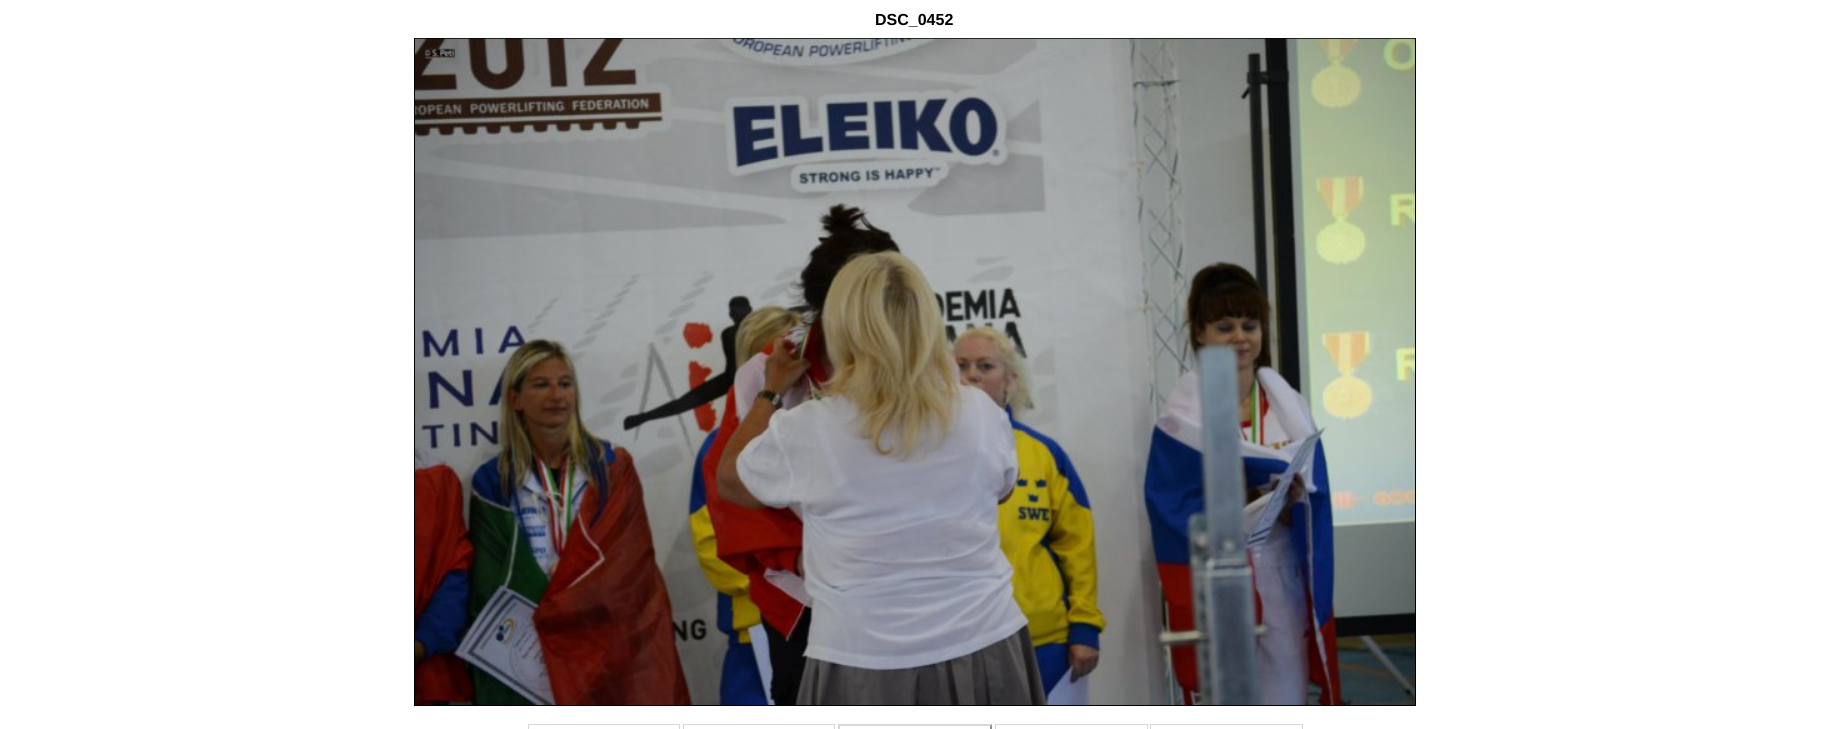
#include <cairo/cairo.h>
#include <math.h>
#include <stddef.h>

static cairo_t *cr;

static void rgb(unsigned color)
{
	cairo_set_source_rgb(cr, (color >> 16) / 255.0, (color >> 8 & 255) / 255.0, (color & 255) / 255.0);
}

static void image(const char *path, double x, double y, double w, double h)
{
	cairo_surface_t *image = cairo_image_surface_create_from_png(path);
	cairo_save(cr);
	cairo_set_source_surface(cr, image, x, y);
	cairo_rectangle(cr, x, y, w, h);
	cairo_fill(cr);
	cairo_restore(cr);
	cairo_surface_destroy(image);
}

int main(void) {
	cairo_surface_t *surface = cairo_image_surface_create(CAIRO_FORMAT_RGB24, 1828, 729);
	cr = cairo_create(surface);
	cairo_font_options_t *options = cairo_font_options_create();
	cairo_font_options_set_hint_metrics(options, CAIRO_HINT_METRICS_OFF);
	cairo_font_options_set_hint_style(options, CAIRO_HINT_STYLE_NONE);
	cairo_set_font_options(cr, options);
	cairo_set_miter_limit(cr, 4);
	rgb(0xffffff);
	cairo_paint(cr);
	cairo_rectangle(cr, 414.5, 38.5, 1001, 667);
	rgb(0x000000);
	cairo_set_line_width(cr, 1);
	cairo_stroke(cr);
	image("img/1.png", 415, 38, 1000, 667);
	cairo_rectangle(cr, 528.5, 724.5, 151, 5);
	rgb(0xd7d7d7);
	cairo_stroke(cr);
	cairo_rectangle(cr, 683.5, 724.5, 151, 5);
	cairo_stroke(cr);
	cairo_new_path(cr);
	cairo_move_to(cr, 838, 724);
	cairo_line_to(cr, 992, 724);
	cairo_line_to(cr, 990, 726);
	cairo_line_to(cr, 840, 726);
	cairo_close_path(cr);
	cairo_fill(cr);
	rgb(0x8f8f8f);
	cairo_new_path(cr);
	cairo_move_to(cr, 992, 724);
	cairo_line_to(cr, 992, 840);
	cairo_line_to(cr, 990, 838);
	cairo_line_to(cr, 990, 726);
	cairo_close_path(cr);
	cairo_fill(cr);
	rgb(0xd7d7d7);
	cairo_new_path(cr);
	cairo_move_to(cr, 838, 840);
	cairo_line_to(cr, 838, 724);
	cairo_line_to(cr, 840, 726);
	cairo_line_to(cr, 840, 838);
	cairo_close_path(cr);
	cairo_fill(cr);
	cairo_rectangle(cr, 995.5, 724.5, 152, 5);
	cairo_stroke(cr);
	cairo_rectangle(cr, 1150.5, 724.5, 152, 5);
	cairo_stroke(cr);
	cairo_select_font_face(cr, "Liberation Sans", CAIRO_FONT_SLANT_NORMAL, CAIRO_FONT_WEIGHT_BOLD);
	cairo_set_font_size(cr, 16);
	rgb(0x000000);
	cairo_move_to(cr, 875, 25);
	cairo_show_text(cr, "DSC_0452");
	cairo_surface_write_to_png(surface, "page.png");
	cairo_font_options_destroy(options);
	cairo_destroy(cr);
	cairo_surface_destroy(surface);
	return 0;
}
